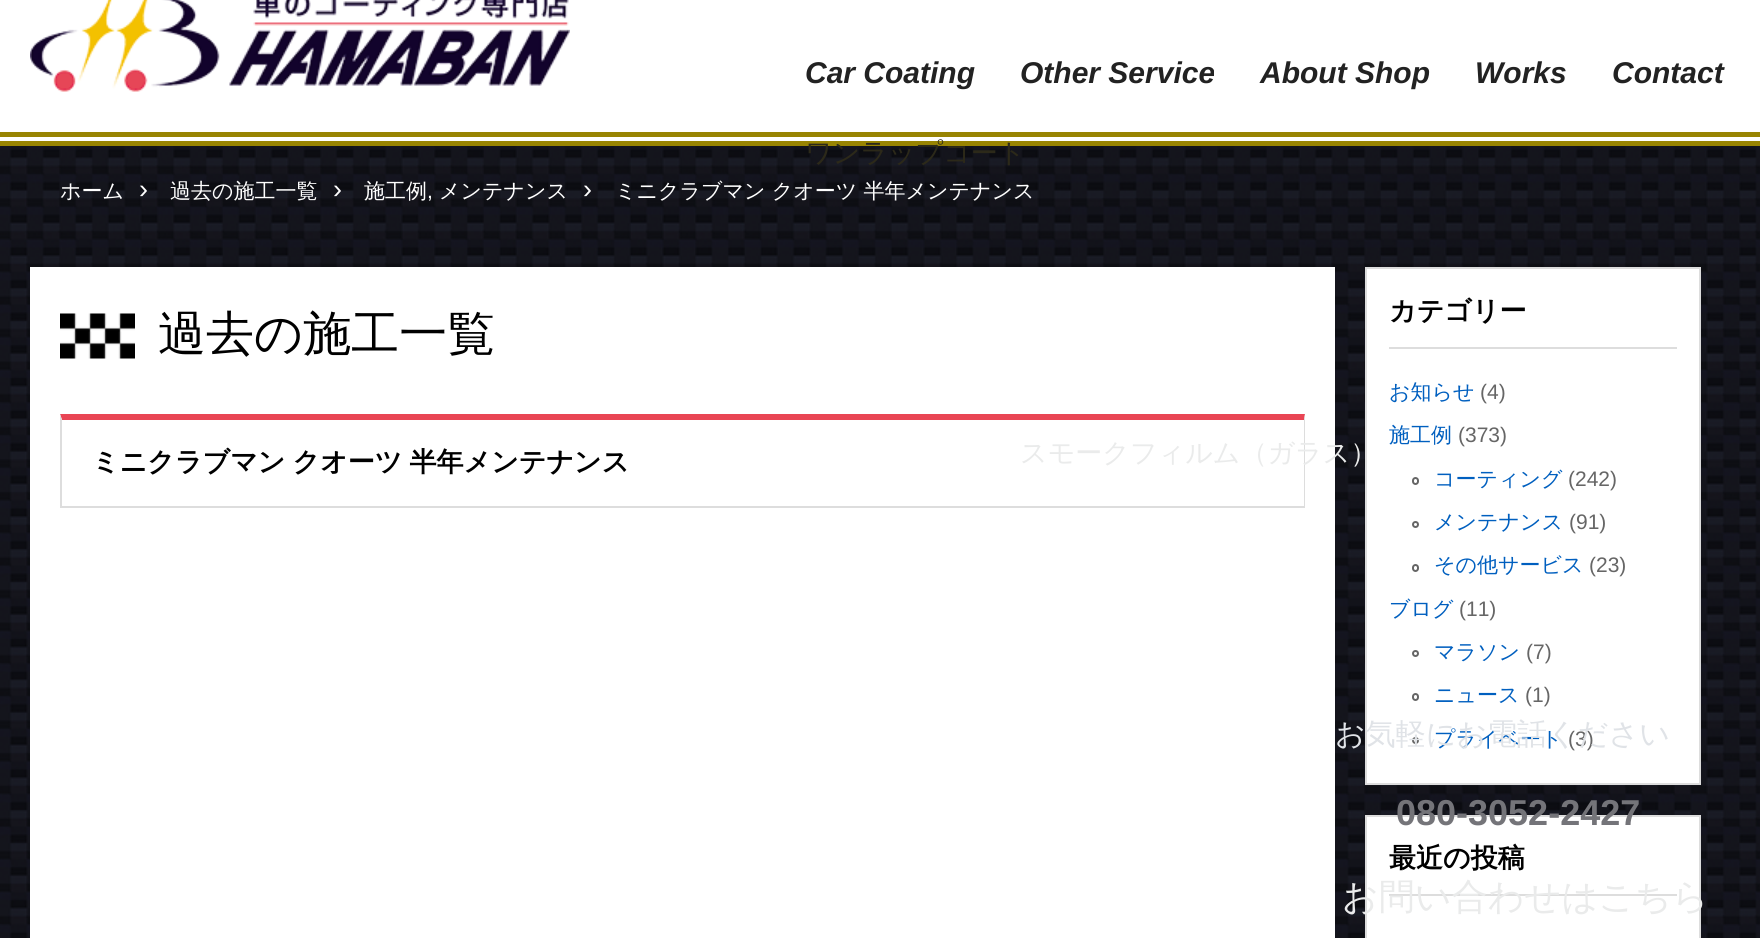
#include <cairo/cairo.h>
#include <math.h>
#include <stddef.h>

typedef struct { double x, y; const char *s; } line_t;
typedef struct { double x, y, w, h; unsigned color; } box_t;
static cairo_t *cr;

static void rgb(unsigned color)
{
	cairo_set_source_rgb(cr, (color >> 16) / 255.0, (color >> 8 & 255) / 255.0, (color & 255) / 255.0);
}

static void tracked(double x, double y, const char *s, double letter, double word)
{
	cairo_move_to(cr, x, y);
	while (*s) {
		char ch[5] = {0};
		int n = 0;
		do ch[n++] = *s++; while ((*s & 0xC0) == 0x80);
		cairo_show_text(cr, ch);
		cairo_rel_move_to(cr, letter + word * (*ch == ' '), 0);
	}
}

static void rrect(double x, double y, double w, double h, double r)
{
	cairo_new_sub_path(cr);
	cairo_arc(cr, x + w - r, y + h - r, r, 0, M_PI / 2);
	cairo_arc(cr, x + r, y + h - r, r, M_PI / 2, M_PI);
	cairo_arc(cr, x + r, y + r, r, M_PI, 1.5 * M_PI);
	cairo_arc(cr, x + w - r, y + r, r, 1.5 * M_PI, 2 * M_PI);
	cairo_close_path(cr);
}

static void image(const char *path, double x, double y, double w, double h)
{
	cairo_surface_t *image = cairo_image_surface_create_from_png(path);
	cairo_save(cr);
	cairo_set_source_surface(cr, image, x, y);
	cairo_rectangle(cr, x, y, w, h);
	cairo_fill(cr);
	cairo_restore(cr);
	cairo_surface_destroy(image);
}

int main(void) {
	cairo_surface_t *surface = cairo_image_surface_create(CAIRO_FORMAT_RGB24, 1760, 938);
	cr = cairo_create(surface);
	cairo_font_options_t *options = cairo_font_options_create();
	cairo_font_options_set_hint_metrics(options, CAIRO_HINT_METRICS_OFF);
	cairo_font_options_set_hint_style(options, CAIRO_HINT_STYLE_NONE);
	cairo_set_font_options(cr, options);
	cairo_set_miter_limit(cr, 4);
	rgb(0xffffff);
	cairo_paint(cr);
	image("img/1.png", 0, 146, 1760, 792);
	image("img/2.png", 30, 0, 540, 92);
	{
		static const box_t items[] = {
			{0, 132, 1760, 5, 0x988402},
			{0, 141, 1760, 5, 0x988402},
			{30, 267, 1305, 671, 0xffffff},
		};
		for (size_t i = 0; i < sizeof items / sizeof *items; i++) {
			rgb(items[i].color);
			cairo_rectangle(cr, items[i].x, items[i].y, items[i].w, items[i].h);
			cairo_fill(cr);
		}
	}
	image("img/3.png", 60, 313, 75, 46);
	rgb(0xe94554);
	cairo_new_path(cr);
	cairo_move_to(cr, 60, 414);
	cairo_line_to(cr, 1305, 414);
	cairo_line_to(cr, 1304, 420);
	cairo_line_to(cr, 62, 420);
	cairo_close_path(cr);
	cairo_fill(cr);
	rgb(0xdddddd);
	cairo_new_path(cr);
	cairo_move_to(cr, 1305, 414);
	cairo_line_to(cr, 1305, 507);
	cairo_line_to(cr, 1304, 506);
	cairo_line_to(cr, 1304, 420);
	cairo_close_path(cr);
	cairo_fill(cr);
	cairo_rectangle(cr, 60, 506, 1245, 2);
	cairo_fill(cr);
	cairo_new_path(cr);
	cairo_move_to(cr, 60, 507);
	cairo_line_to(cr, 60, 414);
	cairo_line_to(cr, 62, 420);
	cairo_line_to(cr, 62, 506);
	cairo_close_path(cr);
	cairo_fill(cr);
	rgb(0xffffff);
	cairo_rectangle(cr, 1366, 268, 334, 516);
	cairo_fill_preserve(cr);
	rgb(0xdddddd);
	cairo_stroke(cr);
	cairo_rectangle(cr, 1389, 347, 288, 2);
	cairo_fill(cr);
	rrect(1413, 478, 5, 6, 2.5);
	rgb(0x666666);
	cairo_stroke(cr);
	cairo_arc(cr, 1415.5, 524.5, 2.5, 0, 2 * M_PI);
	cairo_stroke(cr);
	rrect(1413, 565, 5, 6, 2.5);
	cairo_stroke(cr);
	cairo_arc(cr, 1415.5, 653.5, 2.5, 0, 2 * M_PI);
	cairo_stroke(cr);
	rrect(1413, 694, 5, 6, 2.5);
	cairo_stroke(cr);
	cairo_arc(cr, 1415.5, 740.5, 2.5, 0, 2 * M_PI);
	cairo_stroke(cr);
	rgb(0xffffff);
	cairo_rectangle(cr, 1366, 816, 334, 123);
	cairo_fill_preserve(cr);
	rgb(0xdddddd);
	cairo_stroke(cr);
	cairo_rectangle(cr, 1389, 894, 288, 2);
	cairo_fill(cr);
	cairo_select_font_face(cr, "Liberation Sans", CAIRO_FONT_SLANT_ITALIC, CAIRO_FONT_WEIGHT_BOLD);
	cairo_set_font_size(cr, 30);
	rgb(0x222222);
	cairo_move_to(cr, 805, 83);
	cairo_show_text(cr, "Car Coating");
	cairo_select_font_face(cr, "WenQuanYi Zen Hei Medium", CAIRO_FONT_SLANT_NORMAL, CAIRO_FONT_WEIGHT_NORMAL);
	cairo_set_font_size(cr, 27);
	rgb(0x2c2919);
	cairo_move_to(cr, 805, 162);
	cairo_show_text(cr, "ワンラップコート");
	cairo_select_font_face(cr, "Liberation Sans", CAIRO_FONT_SLANT_ITALIC, CAIRO_FONT_WEIGHT_BOLD);
	cairo_set_font_size(cr, 30);
	rgb(0x222222);
	cairo_move_to(cr, 1020, 83);
	cairo_show_text(cr, "Other Service");
	cairo_select_font_face(cr, "WenQuanYi Zen Hei Medium", CAIRO_FONT_SLANT_NORMAL, CAIRO_FONT_WEIGHT_NORMAL);
	cairo_set_font_size(cr, 27);
	rgb(0xeaebeb);
	cairo_move_to(cr, 1020, 462);
	cairo_show_text(cr, "スモークフィルム（ガラス）");
	cairo_select_font_face(cr, "Liberation Sans", CAIRO_FONT_SLANT_ITALIC, CAIRO_FONT_WEIGHT_BOLD);
	cairo_set_font_size(cr, 30);
	rgb(0x222222);
	{
		static const line_t items[] = {
			{1260, 83, "About Shop"},
			{1475, 83, "Works"},
			{1612, 83, "Contact"},
		};
		for (size_t i = 0; i < sizeof items / sizeof *items; i++) {
			cairo_move_to(cr, items[i].x, items[i].y);
			cairo_show_text(cr, items[i].s);
		}
	}
	cairo_select_font_face(cr, "WenQuanYi Zen Hei Medium", CAIRO_FONT_SLANT_NORMAL, CAIRO_FONT_WEIGHT_NORMAL);
	cairo_set_font_size(cr, 21);
	rgb(0xffffff);
	cairo_move_to(cr, 60, 198);
	cairo_show_text(cr, "ホーム");
	cairo_select_font_face(cr, "Liberation Sans", CAIRO_FONT_SLANT_NORMAL, CAIRO_FONT_WEIGHT_NORMAL);
	cairo_set_font_size(cr, 27);
	cairo_move_to(cr, 139, 198);
	cairo_show_text(cr, "›");
	cairo_select_font_face(cr, "WenQuanYi Zen Hei Medium", CAIRO_FONT_SLANT_NORMAL, CAIRO_FONT_WEIGHT_NORMAL);
	cairo_set_font_size(cr, 21);
	cairo_move_to(cr, 170, 198);
	cairo_show_text(cr, "過去の施工一覧");
	cairo_select_font_face(cr, "Liberation Sans", CAIRO_FONT_SLANT_NORMAL, CAIRO_FONT_WEIGHT_NORMAL);
	cairo_set_font_size(cr, 27);
	cairo_move_to(cr, 333, 198);
	cairo_show_text(cr, "›");
	cairo_select_font_face(cr, "WenQuanYi Zen Hei Medium", CAIRO_FONT_SLANT_NORMAL, CAIRO_FONT_WEIGHT_NORMAL);
	cairo_set_font_size(cr, 21);
	cairo_move_to(cr, 364, 198);
	cairo_show_text(cr, "施工例");
	cairo_move_to(cr, 439, 198);
	cairo_show_text(cr, "メンテナンス");
	cairo_select_font_face(cr, "Liberation Sans", CAIRO_FONT_SLANT_NORMAL, CAIRO_FONT_WEIGHT_NORMAL);
	cairo_move_to(cr, 427, 198);
	cairo_show_text(cr, ",");
	cairo_set_font_size(cr, 27);
	cairo_move_to(cr, 583, 198);
	cairo_show_text(cr, "›");
	cairo_select_font_face(cr, "WenQuanYi Zen Hei Medium", CAIRO_FONT_SLANT_NORMAL, CAIRO_FONT_WEIGHT_NORMAL);
	cairo_set_font_size(cr, 21);
	cairo_move_to(cr, 615, 198);
	cairo_show_text(cr, "ミニクラブマン クオーツ 半年メンテナンス");
	cairo_set_font_size(cr, 48);
	rgb(0x000000);
	cairo_move_to(cr, 158, 350);
	cairo_show_text(cr, "過去の施工一覧");
	cairo_select_font_face(cr, "WenQuanYi Zen Hei", CAIRO_FONT_SLANT_NORMAL, CAIRO_FONT_WEIGHT_BOLD);
	cairo_set_font_size(cr, 27);
	tracked(92, 471, "ミニクラブマン クオーツ 半年メンテナンス", 0, -1);
	cairo_move_to(cr, 1389, 320);
	cairo_show_text(cr, "カテゴリー");
	cairo_select_font_face(cr, "WenQuanYi Zen Hei Medium", CAIRO_FONT_SLANT_NORMAL, CAIRO_FONT_WEIGHT_NORMAL);
	cairo_set_font_size(cr, 21);
	rgb(0x005fbf);
	cairo_move_to(cr, 1389, 399);
	cairo_show_text(cr, "お知らせ");
	cairo_select_font_face(cr, "Liberation Sans", CAIRO_FONT_SLANT_NORMAL, CAIRO_FONT_WEIGHT_NORMAL);
	rgb(0x666666);
	cairo_move_to(cr, 1480, 399);
	cairo_show_text(cr, "(4)");
	cairo_select_font_face(cr, "WenQuanYi Zen Hei Medium", CAIRO_FONT_SLANT_NORMAL, CAIRO_FONT_WEIGHT_NORMAL);
	rgb(0x005fbf);
	cairo_move_to(cr, 1389, 442);
	cairo_show_text(cr, "施工例");
	cairo_select_font_face(cr, "Liberation Sans", CAIRO_FONT_SLANT_NORMAL, CAIRO_FONT_WEIGHT_NORMAL);
	rgb(0x666666);
	cairo_move_to(cr, 1458, 442);
	cairo_show_text(cr, "(373)");
	cairo_select_font_face(cr, "WenQuanYi Zen Hei Medium", CAIRO_FONT_SLANT_NORMAL, CAIRO_FONT_WEIGHT_NORMAL);
	rgb(0x005fbf);
	cairo_move_to(cr, 1434, 486);
	cairo_show_text(cr, "コーティング");
	cairo_select_font_face(cr, "Liberation Sans", CAIRO_FONT_SLANT_NORMAL, CAIRO_FONT_WEIGHT_NORMAL);
	rgb(0x666666);
	cairo_move_to(cr, 1568, 486);
	cairo_show_text(cr, "(242)");
	cairo_select_font_face(cr, "WenQuanYi Zen Hei Medium", CAIRO_FONT_SLANT_NORMAL, CAIRO_FONT_WEIGHT_NORMAL);
	rgb(0x005fbf);
	cairo_move_to(cr, 1434, 529);
	cairo_show_text(cr, "メンテナンス");
	cairo_select_font_face(cr, "Liberation Sans", CAIRO_FONT_SLANT_NORMAL, CAIRO_FONT_WEIGHT_NORMAL);
	rgb(0x666666);
	cairo_move_to(cr, 1569, 529);
	cairo_show_text(cr, "(91)");
	cairo_select_font_face(cr, "WenQuanYi Zen Hei Medium", CAIRO_FONT_SLANT_NORMAL, CAIRO_FONT_WEIGHT_NORMAL);
	rgb(0x005fbf);
	cairo_move_to(cr, 1434, 572);
	cairo_show_text(cr, "その他サービス");
	cairo_select_font_face(cr, "Liberation Sans", CAIRO_FONT_SLANT_NORMAL, CAIRO_FONT_WEIGHT_NORMAL);
	rgb(0x666666);
	cairo_move_to(cr, 1589, 572);
	cairo_show_text(cr, "(23)");
	cairo_select_font_face(cr, "WenQuanYi Zen Hei Medium", CAIRO_FONT_SLANT_NORMAL, CAIRO_FONT_WEIGHT_NORMAL);
	rgb(0x005fbf);
	cairo_move_to(cr, 1389, 616);
	cairo_show_text(cr, "ブログ");
	cairo_select_font_face(cr, "Liberation Sans", CAIRO_FONT_SLANT_NORMAL, CAIRO_FONT_WEIGHT_NORMAL);
	rgb(0x666666);
	cairo_move_to(cr, 1459, 616);
	cairo_show_text(cr, "(11)");
	cairo_select_font_face(cr, "WenQuanYi Zen Hei Medium", CAIRO_FONT_SLANT_NORMAL, CAIRO_FONT_WEIGHT_NORMAL);
	rgb(0x005fbf);
	cairo_move_to(cr, 1434, 659);
	cairo_show_text(cr, "マラソン");
	cairo_select_font_face(cr, "Liberation Sans", CAIRO_FONT_SLANT_NORMAL, CAIRO_FONT_WEIGHT_NORMAL);
	rgb(0x666666);
	cairo_move_to(cr, 1526, 659);
	cairo_show_text(cr, "(7)");
	cairo_select_font_face(cr, "WenQuanYi Zen Hei Medium", CAIRO_FONT_SLANT_NORMAL, CAIRO_FONT_WEIGHT_NORMAL);
	rgb(0x005fbf);
	cairo_move_to(cr, 1434, 702);
	cairo_show_text(cr, "ニュース");
	cairo_select_font_face(cr, "Liberation Sans", CAIRO_FONT_SLANT_NORMAL, CAIRO_FONT_WEIGHT_NORMAL);
	rgb(0x666666);
	cairo_move_to(cr, 1525, 702);
	cairo_show_text(cr, "(1)");
	cairo_select_font_face(cr, "WenQuanYi Zen Hei Medium", CAIRO_FONT_SLANT_NORMAL, CAIRO_FONT_WEIGHT_NORMAL);
	rgb(0x005fbf);
	cairo_move_to(cr, 1434, 746);
	cairo_show_text(cr, "プライベート");
	cairo_select_font_face(cr, "Liberation Sans", CAIRO_FONT_SLANT_NORMAL, CAIRO_FONT_WEIGHT_NORMAL);
	rgb(0x666666);
	cairo_move_to(cr, 1568, 746);
	cairo_show_text(cr, "(3)");
	cairo_select_font_face(cr, "WenQuanYi Zen Hei", CAIRO_FONT_SLANT_NORMAL, CAIRO_FONT_WEIGHT_BOLD);
	cairo_set_font_size(cr, 27);
	rgb(0x000000);
	cairo_move_to(cr, 1389, 867);
	cairo_show_text(cr, "最近の投稿");
	cairo_select_font_face(cr, "WenQuanYi Zen Hei Medium", CAIRO_FONT_SLANT_NORMAL, CAIRO_FONT_WEIGHT_NORMAL);
	cairo_set_font_size(cr, 30);
	rgb(0xe0e3e7);
	cairo_move_to(cr, 1335, 744);
	cairo_show_text(cr, "お気軽にお電話ください");
	cairo_select_font_face(cr, "Liberation Sans", CAIRO_FONT_SLANT_NORMAL, CAIRO_FONT_WEIGHT_BOLD);
	cairo_set_font_size(cr, 36);
	rgb(0x747479);
	cairo_move_to(cr, 1396, 825);
	cairo_show_text(cr, "080-3052-2427");
	cairo_select_font_face(cr, "WenQuanYi Zen Hei Medium", CAIRO_FONT_SLANT_NORMAL, CAIRO_FONT_WEIGHT_NORMAL);
	rgb(0xeaebeb);
	cairo_move_to(cr, 1342, 909);
	cairo_show_text(cr, "お問い合わせはこちら");
	cairo_surface_write_to_png(surface, "page.png");
	cairo_font_options_destroy(options);
	cairo_destroy(cr);
	cairo_surface_destroy(surface);
	return 0;
}
